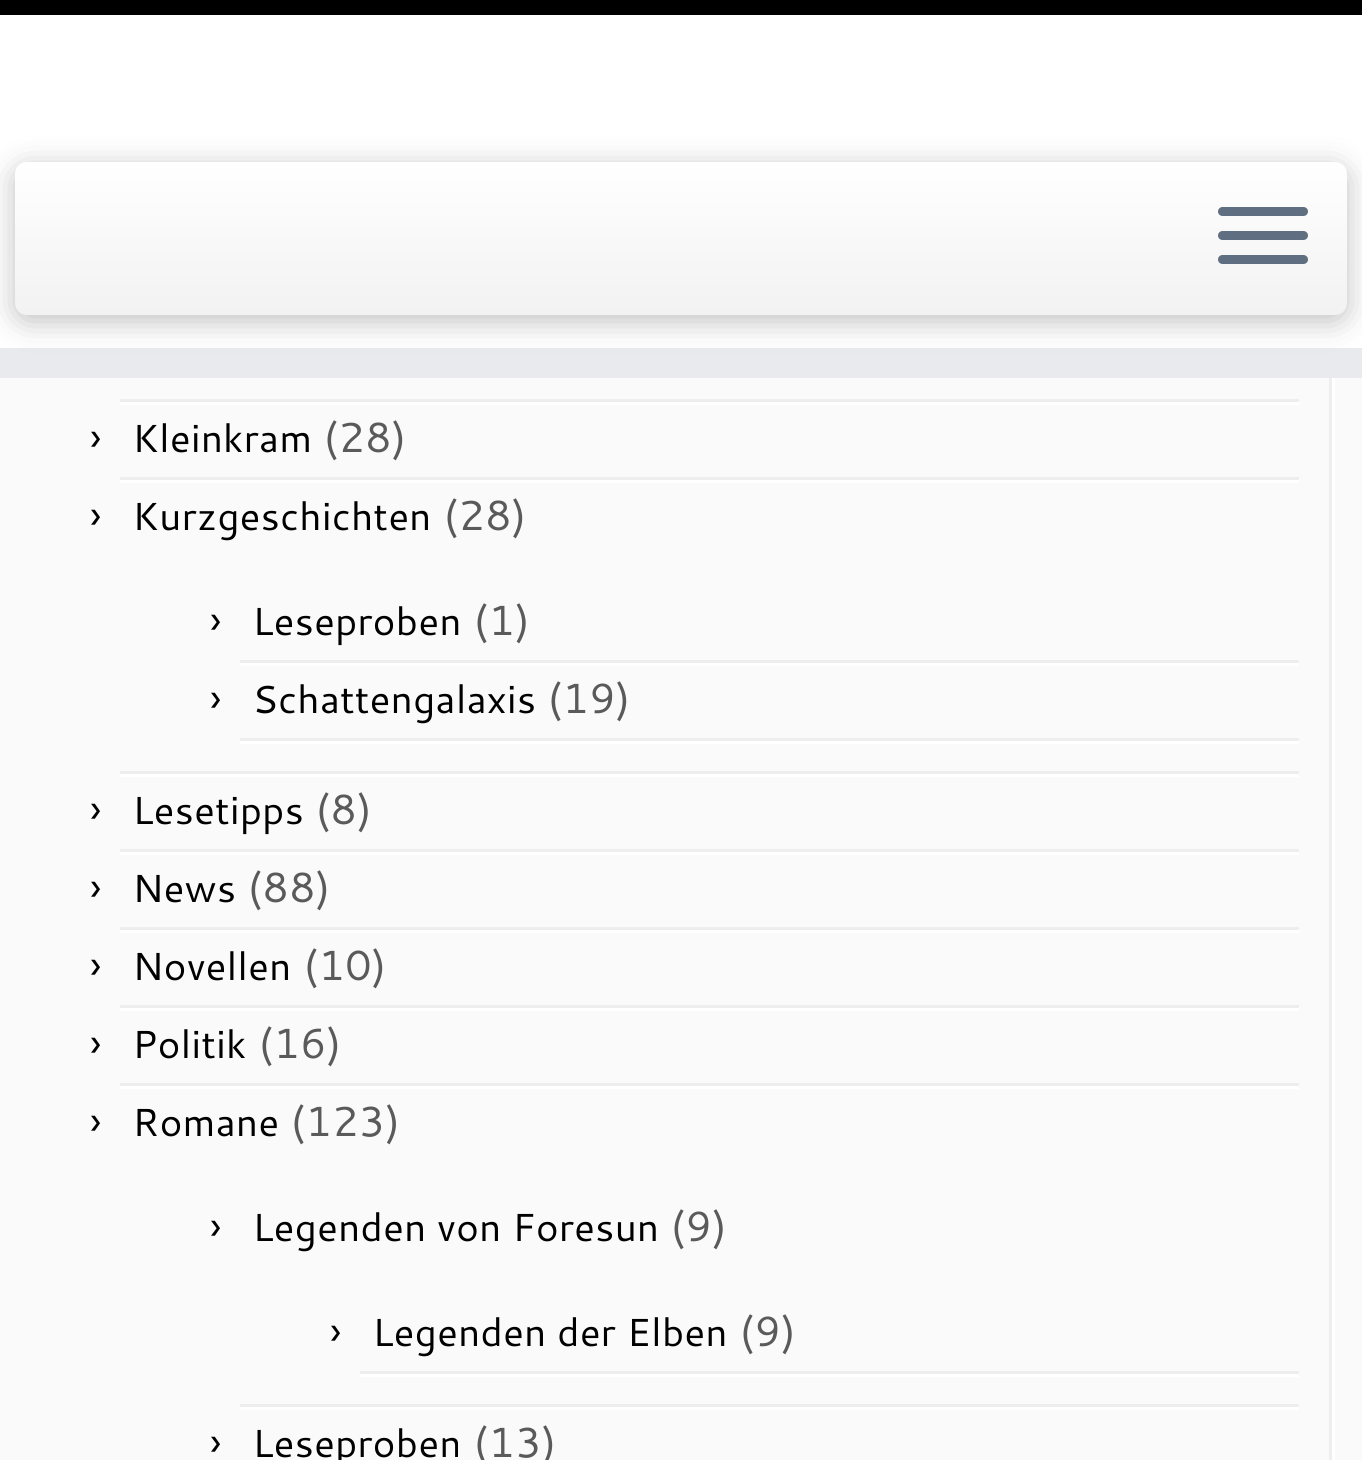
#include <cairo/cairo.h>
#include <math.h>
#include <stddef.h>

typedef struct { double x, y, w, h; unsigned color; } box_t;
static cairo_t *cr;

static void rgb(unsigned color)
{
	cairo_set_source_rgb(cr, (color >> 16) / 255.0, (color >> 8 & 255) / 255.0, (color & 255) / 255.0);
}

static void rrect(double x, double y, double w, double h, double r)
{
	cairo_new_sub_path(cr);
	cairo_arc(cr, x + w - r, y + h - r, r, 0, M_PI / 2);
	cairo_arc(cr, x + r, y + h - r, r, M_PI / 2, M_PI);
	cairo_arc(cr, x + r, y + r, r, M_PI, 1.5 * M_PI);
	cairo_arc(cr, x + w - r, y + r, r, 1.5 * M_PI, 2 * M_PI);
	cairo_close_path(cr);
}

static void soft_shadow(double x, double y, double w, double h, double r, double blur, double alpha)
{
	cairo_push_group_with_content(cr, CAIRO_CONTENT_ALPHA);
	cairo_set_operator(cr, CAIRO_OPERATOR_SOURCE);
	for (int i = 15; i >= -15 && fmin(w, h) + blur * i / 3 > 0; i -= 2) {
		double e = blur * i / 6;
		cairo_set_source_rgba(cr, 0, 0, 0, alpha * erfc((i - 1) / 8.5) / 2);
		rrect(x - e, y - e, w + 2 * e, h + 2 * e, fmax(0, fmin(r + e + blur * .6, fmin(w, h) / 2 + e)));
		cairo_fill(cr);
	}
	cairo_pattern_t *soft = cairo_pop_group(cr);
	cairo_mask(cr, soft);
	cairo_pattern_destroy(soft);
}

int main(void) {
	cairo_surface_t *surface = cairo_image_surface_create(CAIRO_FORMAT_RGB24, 1362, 1460);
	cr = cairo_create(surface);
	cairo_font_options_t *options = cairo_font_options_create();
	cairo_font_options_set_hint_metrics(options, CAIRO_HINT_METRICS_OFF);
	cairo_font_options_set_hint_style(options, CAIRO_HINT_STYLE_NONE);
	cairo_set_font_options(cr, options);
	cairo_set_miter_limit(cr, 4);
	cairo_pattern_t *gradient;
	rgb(0xfafafa);
	cairo_paint(cr);
	{
		static const box_t items[] = {
			{0, 15, 1362, 333, 0xffffff},
			{0, 0, 1362, 15, 0x000000},
			{0, 348, 1362, 30, 0xe9eaee},
		};
		for (size_t i = 0; i < sizeof items / sizeof *items; i++) {
			rgb(items[i].color);
			cairo_rectangle(cr, items[i].x, items[i].y, items[i].w, items[i].h);
			cairo_fill(cr);
		}
	}
	rgb(0x000000);
	soft_shadow(15, 168, 1332, 153, 12, 15, 0.25);
	gradient = cairo_pattern_create_linear(681, 162, 681, 315);
	cairo_pattern_add_color_stop_rgba(gradient, 0, 1, 1, 1, 1);
	cairo_pattern_add_color_stop_rgba(gradient, 1, 0.949, 0.949, 0.949, 1);
	cairo_set_source(cr, gradient);
	cairo_pattern_destroy(gradient);
	rrect(15, 162, 1332, 153, 12);
	cairo_fill(cr);
	rgb(0x5f6f81);
	rrect(1218, 207, 90, 9, 4.5);
	cairo_fill(cr);
	rrect(1218, 231, 90, 9, 4.5);
	cairo_fill(cr);
	rrect(1218, 255, 90, 9, 4.5);
	cairo_fill(cr);
	{
		static const box_t items[] = {
			{1329, 378, 3, 1082, 0xeeeeee},
			{120, 399, 1179, 3, 0xeeeeee},
			{120, 402, 1179, 3, 0xffffff},
			{120, 477, 1179, 3, 0xeeeeee},
			{120, 480, 1179, 3, 0xffffff},
			{120, 771, 1179, 3, 0xeeeeee},
			{240, 660, 1059, 3, 0xeeeeee},
			{240, 663, 1059, 3, 0xffffff},
			{240, 738, 1059, 3, 0xeeeeee},
			{240, 741, 1059, 3, 0xffffff},
			{120, 774, 1179, 3, 0xffffff},
			{120, 849, 1179, 3, 0xeeeeee},
			{120, 852, 1179, 3, 0xffffff},
			{120, 927, 1179, 3, 0xeeeeee},
			{120, 930, 1179, 3, 0xffffff},
			{120, 1005, 1179, 3, 0xeeeeee},
			{120, 1008, 1179, 3, 0xffffff},
			{120, 1083, 1179, 3, 0xeeeeee},
			{120, 1086, 1179, 3, 0xffffff},
			{240, 1404, 1059, 3, 0xeeeeee},
			{360, 1371, 939, 3, 0xeeeeee},
			{360, 1374, 939, 3, 0xffffff},
			{240, 1407, 1059, 3, 0xffffff},
			{1332, 378, 3, 1082, 0xffffff},
		};
		for (size_t i = 0; i < sizeof items / sizeof *items; i++) {
			rgb(items[i].color);
			cairo_rectangle(cr, items[i].x, items[i].y, items[i].w, items[i].h);
			cairo_fill(cr);
		}
	}
	cairo_select_font_face(cr, "Cantarell", CAIRO_FONT_SLANT_NORMAL, CAIRO_FONT_WEIGHT_NORMAL);
	cairo_set_font_size(cr, 42);
	rgb(0x000000);
	cairo_move_to(cr, 90, 452);
	cairo_show_text(cr, "›");
	cairo_set_font_size(cr, 39);
	cairo_move_to(cr, 132, 452);
	cairo_show_text(cr, "Kleinkram");
	cairo_set_font_size(cr, 42);
	rgb(0x5a5a5a);
	cairo_move_to(cr, 323, 452);
	cairo_show_text(cr, "(28)");
	rgb(0x000000);
	cairo_move_to(cr, 90, 530);
	cairo_show_text(cr, "›");
	cairo_set_font_size(cr, 39);
	cairo_move_to(cr, 132, 530);
	cairo_show_text(cr, "Kurzgeschichten");
	cairo_set_font_size(cr, 42);
	rgb(0x5a5a5a);
	cairo_move_to(cr, 443, 530);
	cairo_show_text(cr, "(28)");
	rgb(0x000000);
	cairo_move_to(cr, 210, 635);
	cairo_show_text(cr, "›");
	cairo_set_font_size(cr, 39);
	cairo_move_to(cr, 252, 635);
	cairo_show_text(cr, "Leseproben");
	cairo_set_font_size(cr, 42);
	rgb(0x5a5a5a);
	cairo_move_to(cr, 473, 635);
	cairo_show_text(cr, "(1)");
	rgb(0x000000);
	cairo_move_to(cr, 210, 713);
	cairo_show_text(cr, "›");
	cairo_set_font_size(cr, 39);
	cairo_move_to(cr, 252, 713);
	cairo_show_text(cr, "Schattengalaxis");
	cairo_set_font_size(cr, 42);
	rgb(0x5a5a5a);
	cairo_move_to(cr, 547, 713);
	cairo_show_text(cr, "(19)");
	rgb(0x000000);
	cairo_move_to(cr, 90, 824);
	cairo_show_text(cr, "›");
	cairo_set_font_size(cr, 39);
	cairo_move_to(cr, 132, 824);
	cairo_show_text(cr, "Lesetipps");
	cairo_set_font_size(cr, 42);
	rgb(0x5a5a5a);
	cairo_move_to(cr, 315, 824);
	cairo_show_text(cr, "(8)");
	rgb(0x000000);
	cairo_move_to(cr, 90, 902);
	cairo_show_text(cr, "›");
	cairo_set_font_size(cr, 39);
	cairo_move_to(cr, 132, 902);
	cairo_show_text(cr, "News");
	cairo_set_font_size(cr, 42);
	rgb(0x5a5a5a);
	cairo_move_to(cr, 247, 902);
	cairo_show_text(cr, "(88)");
	rgb(0x000000);
	cairo_move_to(cr, 90, 980);
	cairo_show_text(cr, "›");
	cairo_set_font_size(cr, 39);
	cairo_move_to(cr, 132, 980);
	cairo_show_text(cr, "Novellen");
	cairo_set_font_size(cr, 42);
	rgb(0x5a5a5a);
	cairo_move_to(cr, 303, 980);
	cairo_show_text(cr, "(10)");
	rgb(0x000000);
	cairo_move_to(cr, 90, 1058);
	cairo_show_text(cr, "›");
	cairo_set_font_size(cr, 39);
	cairo_move_to(cr, 132, 1058);
	cairo_show_text(cr, "Politik");
	cairo_set_font_size(cr, 42);
	rgb(0x5a5a5a);
	cairo_move_to(cr, 258, 1058);
	cairo_show_text(cr, "(16)");
	rgb(0x000000);
	cairo_move_to(cr, 90, 1136);
	cairo_show_text(cr, "›");
	cairo_set_font_size(cr, 39);
	cairo_move_to(cr, 132, 1136);
	cairo_show_text(cr, "Romane");
	cairo_set_font_size(cr, 42);
	rgb(0x5a5a5a);
	cairo_move_to(cr, 290, 1136);
	cairo_show_text(cr, "(123)");
	rgb(0x000000);
	cairo_move_to(cr, 210, 1241);
	cairo_show_text(cr, "›");
	cairo_set_font_size(cr, 39);
	cairo_move_to(cr, 252, 1241);
	cairo_show_text(cr, "Legenden von Foresun");
	cairo_set_font_size(cr, 42);
	rgb(0x5a5a5a);
	cairo_move_to(cr, 670, 1241);
	cairo_show_text(cr, "(9)");
	rgb(0x000000);
	cairo_move_to(cr, 330, 1346);
	cairo_show_text(cr, "›");
	cairo_set_font_size(cr, 39);
	cairo_move_to(cr, 372, 1346);
	cairo_show_text(cr, "Legenden der Elben");
	cairo_set_font_size(cr, 42);
	rgb(0x5a5a5a);
	cairo_move_to(cr, 739, 1346);
	cairo_show_text(cr, "(9)");
	rgb(0x000000);
	cairo_move_to(cr, 210, 1457);
	cairo_show_text(cr, "›");
	cairo_set_font_size(cr, 39);
	cairo_move_to(cr, 252, 1457);
	cairo_show_text(cr, "Leseproben");
	cairo_set_font_size(cr, 42);
	rgb(0x5a5a5a);
	cairo_move_to(cr, 473, 1457);
	cairo_show_text(cr, "(13)");
	cairo_surface_write_to_png(surface, "page.png");
	cairo_font_options_destroy(options);
	cairo_destroy(cr);
	cairo_surface_destroy(surface);
	return 0;
}
